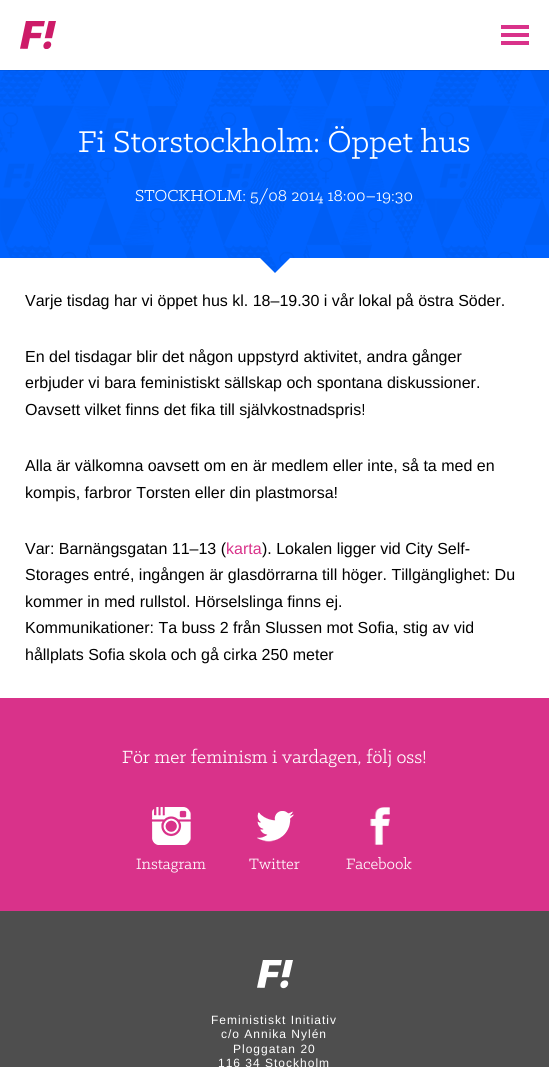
#include <cairo/cairo.h>
#include <math.h>
#include <stddef.h>

typedef struct { double x, y; const char *s; } line_t;
typedef struct { double x, y, w, h; unsigned color; } box_t;
static cairo_t *cr;

static void rgb(unsigned color)
{
	cairo_set_source_rgb(cr, (color >> 16) / 255.0, (color >> 8 & 255) / 255.0, (color & 255) / 255.0);
}

static void tracked(double x, double y, const char *s, double letter, double word)
{
	cairo_move_to(cr, x, y);
	while (*s) {
		char ch[5] = {0};
		int n = 0;
		do ch[n++] = *s++; while ((*s & 0xC0) == 0x80);
		cairo_show_text(cr, ch);
		cairo_rel_move_to(cr, letter + word * (*ch == ' '), 0);
	}
}

static void image(const char *path, double x, double y, double w, double h)
{
	cairo_surface_t *image = cairo_image_surface_create_from_png(path);
	cairo_save(cr);
	cairo_set_source_surface(cr, image, x, y);
	cairo_rectangle(cr, x, y, w, h);
	cairo_fill(cr);
	cairo_restore(cr);
	cairo_surface_destroy(image);
}

int main(void) {
	cairo_surface_t *surface = cairo_image_surface_create(CAIRO_FORMAT_RGB24, 549, 1067);
	cr = cairo_create(surface);
	cairo_font_options_t *options = cairo_font_options_create();
	cairo_font_options_set_hint_metrics(options, CAIRO_HINT_METRICS_OFF);
	cairo_font_options_set_hint_style(options, CAIRO_HINT_STYLE_NONE);
	cairo_set_font_options(cr, options);
	cairo_set_miter_limit(cr, 4);
	rgb(0x4e4e4e);
	cairo_paint(cr);
	rgb(0x0062ff);
	cairo_rectangle(cr, 0, 70, 549, 203);
	cairo_fill(cr);
	image("img/2.png", 0, 70, 549, 203);
	cairo_set_source_rgba(cr, 0, 0, 0, 0.1);
	cairo_rectangle(cr, 0, 70, 549, 1);
	cairo_fill(cr);
	rgb(0xffffff);
	cairo_rectangle(cr, 0, 0, 549, 70);
	cairo_fill(cr);
	image("img/1.png", 20, 21, 36, 28);
	{
		static const box_t items[] = {
			{501, 33, 28, 4, 0xd9328a},
			{501, 25, 28, 4, 0xd9328a},
			{501, 41, 28, 4, 0xd9328a},
			{0, 273, 549, 425, 0xffffff},
		};
		for (size_t i = 0; i < sizeof items / sizeof *items; i++) {
			rgb(items[i].color);
			cairo_rectangle(cr, items[i].x, items[i].y, items[i].w, items[i].h);
			cairo_fill(cr);
		}
	}
	cairo_save(cr);
	cairo_rectangle(cr, 0, 70, 549, 203);
	cairo_clip(cr);
	cairo_new_path(cr);
	cairo_move_to(cr, 260, 288);
	cairo_line_to(cr, 260, 258);
	cairo_line_to(cr, 275, 273);
	cairo_close_path(cr);
	cairo_move_to(cr, 290, 258);
	cairo_line_to(cr, 290, 288);
	cairo_line_to(cr, 275, 273);
	cairo_close_path(cr);
	cairo_fill(cr);
	cairo_restore(cr);
	{
		static const box_t items[] = {
			{0, 258, 260, 15, 0xffffff},
			{290, 258, 259, 15, 0xffffff},
			{0, 698, 549, 213, 0xd9328a},
		};
		for (size_t i = 0; i < sizeof items / sizeof *items; i++) {
			rgb(items[i].color);
			cairo_rectangle(cr, items[i].x, items[i].y, items[i].w, items[i].h);
			cairo_fill(cr);
		}
	}
	image("img/3.png", 152, 807, 39, 38);
	image("img/4.png", 257, 811, 37, 31);
	image("img/5.png", 370, 807, 20, 38);
	image("img/6.png", 257, 960, 36, 29);
	cairo_select_font_face(cr, "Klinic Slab", CAIRO_FONT_SLANT_NORMAL, CAIRO_FONT_WEIGHT_NORMAL);
	cairo_set_font_size(cr, 34);
	rgb(0xffffff);
	cairo_move_to(cr, 78, 152);
	cairo_show_text(cr, "Fi Storstockholm: Öppet hus");
	cairo_set_font_size(cr, 18);
	cairo_move_to(cr, 135, 201);
	cairo_show_text(cr, "STOCKHOLM: 5/08 2014 18:00–19:30");
	cairo_select_font_face(cr, "Liberation Sans", CAIRO_FONT_SLANT_NORMAL, CAIRO_FONT_WEIGHT_NORMAL);
	cairo_set_font_size(cr, 16);
	rgb(0x000000);
	{
		static const line_t items[] = {
			{25, 306, "Varje tisdag har vi öppet hus kl. 18–19.30 i vår lokal på östra Söder."},
			{25, 362, "En del tisdagar blir det någon uppstyrd aktivitet, andra gånger"},
			{25, 388, "erbjuder vi bara feministiskt sällskap och spontana diskussioner."},
			{25, 415, "Oavsett vilket finns det fika till självkostnadspris!"},
			{25, 471, "Alla är välkomna oavsett om en är medlem eller inte, så ta med en"},
			{25, 498, "kompis, farbror Torsten eller din plastmorsa!"},
			{25, 554, "Var: Barnängsgatan 11–13 ("},
		};
		for (size_t i = 0; i < sizeof items / sizeof *items; i++) {
			cairo_move_to(cr, items[i].x, items[i].y);
			cairo_show_text(cr, items[i].s);
		}
	}
	rgb(0xd9328a);
	cairo_move_to(cr, 226, 554);
	cairo_show_text(cr, "karta");
	rgb(0x000000);
	{
		static const line_t items[] = {
			{262, 554, "). Lokalen ligger vid City Self-"},
			{25, 580, "Storages entré, ingången är glasdörrarna till höger. Tillgänglighet: Du"},
			{25, 607, "kommer in med rullstol. Hörselslinga finns ej."},
			{25, 633, "Kommunikationer: Ta buss 2 från Slussen mot Sofia, stig av vid"},
			{25, 660, "hållplats Sofia skola och gå cirka 250 meter"},
		};
		for (size_t i = 0; i < sizeof items / sizeof *items; i++) {
			cairo_move_to(cr, items[i].x, items[i].y);
			cairo_show_text(cr, items[i].s);
		}
	}
	cairo_select_font_face(cr, "Klinic Slab", CAIRO_FONT_SLANT_NORMAL, CAIRO_FONT_WEIGHT_NORMAL);
	cairo_set_font_size(cr, 20);
	rgb(0xffffff);
	cairo_move_to(cr, 122, 763);
	cairo_show_text(cr, "För mer feminism i vardagen, följ oss!");
	cairo_set_font_size(cr, 17);
	{
		static const line_t items[] = {
			{136, 869, "Instagram"},
			{249, 869, "Twitter"},
			{346, 869, "Facebook"},
		};
		for (size_t i = 0; i < sizeof items / sizeof *items; i++) {
			cairo_move_to(cr, items[i].x, items[i].y);
			cairo_show_text(cr, items[i].s);
		}
	}
	cairo_select_font_face(cr, "Liberation Sans", CAIRO_FONT_SLANT_NORMAL, CAIRO_FONT_WEIGHT_NORMAL);
	cairo_set_font_size(cr, 12);
	{
		static const line_t items[] = {
			{211, 1024, "Feministiskt Initiativ"},
			{221, 1038, "c/o Annika Nylén"},
			{233, 1053, "Ploggatan 20"},
			{218, 1067, "116 34 Stockholm"},
		};
		for (size_t i = 0; i < sizeof items / sizeof *items; i++) {
			tracked(items[i].x, items[i].y, items[i].s, 1, 0);
		}
	}
	cairo_surface_write_to_png(surface, "page.png");
	cairo_font_options_destroy(options);
	cairo_destroy(cr);
	cairo_surface_destroy(surface);
	return 0;
}
